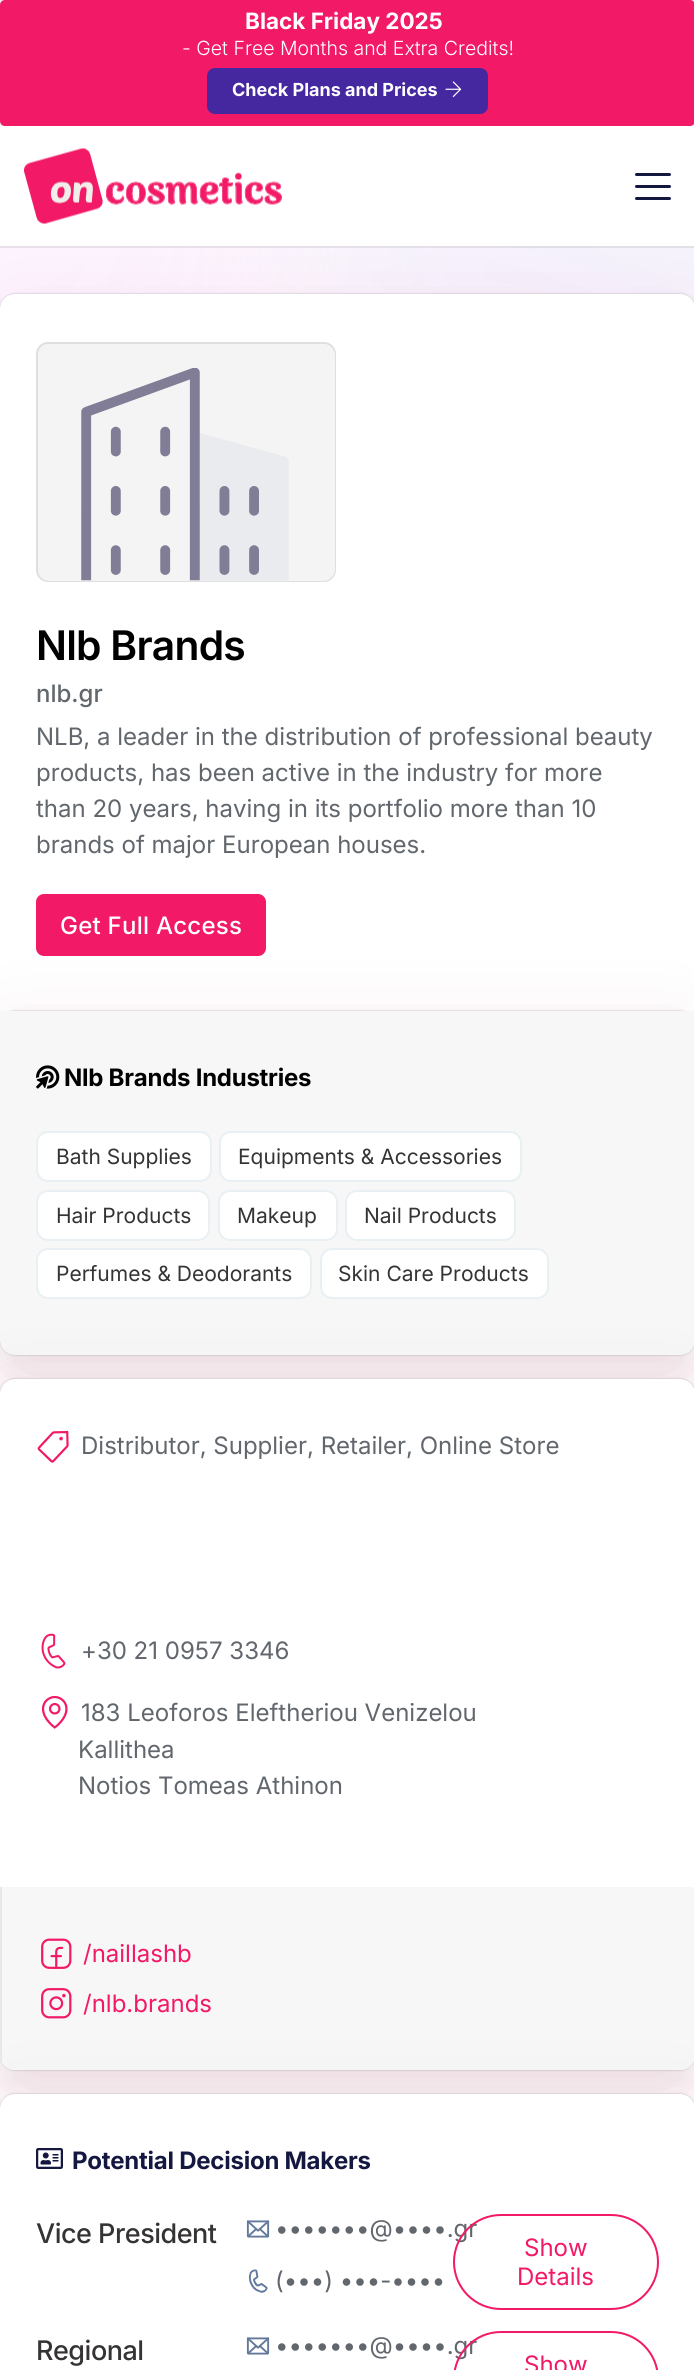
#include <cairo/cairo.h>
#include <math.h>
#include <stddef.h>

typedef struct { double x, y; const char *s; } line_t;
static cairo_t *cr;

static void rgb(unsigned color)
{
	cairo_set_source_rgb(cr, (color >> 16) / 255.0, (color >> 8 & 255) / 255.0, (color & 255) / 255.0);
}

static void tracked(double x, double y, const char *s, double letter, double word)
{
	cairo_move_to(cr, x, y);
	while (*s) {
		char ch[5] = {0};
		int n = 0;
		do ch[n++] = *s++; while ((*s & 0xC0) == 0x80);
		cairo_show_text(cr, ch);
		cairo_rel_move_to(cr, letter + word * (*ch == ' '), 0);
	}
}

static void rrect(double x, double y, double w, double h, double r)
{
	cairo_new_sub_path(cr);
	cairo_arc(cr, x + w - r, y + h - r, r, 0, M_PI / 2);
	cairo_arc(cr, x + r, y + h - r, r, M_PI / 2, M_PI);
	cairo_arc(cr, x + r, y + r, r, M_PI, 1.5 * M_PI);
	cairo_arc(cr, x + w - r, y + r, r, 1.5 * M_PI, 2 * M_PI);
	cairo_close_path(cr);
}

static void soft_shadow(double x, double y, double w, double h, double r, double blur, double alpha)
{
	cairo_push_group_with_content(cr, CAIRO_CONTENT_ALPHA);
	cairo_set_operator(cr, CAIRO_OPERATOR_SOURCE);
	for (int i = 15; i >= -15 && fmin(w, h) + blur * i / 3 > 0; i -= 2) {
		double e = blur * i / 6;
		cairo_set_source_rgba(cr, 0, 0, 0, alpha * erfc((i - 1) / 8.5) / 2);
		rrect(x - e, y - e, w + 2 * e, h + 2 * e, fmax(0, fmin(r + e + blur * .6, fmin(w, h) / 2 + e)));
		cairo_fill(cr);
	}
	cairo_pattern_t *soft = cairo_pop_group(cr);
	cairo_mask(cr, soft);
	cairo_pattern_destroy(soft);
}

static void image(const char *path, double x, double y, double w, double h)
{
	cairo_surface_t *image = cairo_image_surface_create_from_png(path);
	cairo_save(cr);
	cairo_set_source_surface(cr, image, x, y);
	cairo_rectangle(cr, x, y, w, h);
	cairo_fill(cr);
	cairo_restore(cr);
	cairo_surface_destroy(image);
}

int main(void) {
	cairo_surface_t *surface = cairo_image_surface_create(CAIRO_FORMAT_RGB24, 694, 2370);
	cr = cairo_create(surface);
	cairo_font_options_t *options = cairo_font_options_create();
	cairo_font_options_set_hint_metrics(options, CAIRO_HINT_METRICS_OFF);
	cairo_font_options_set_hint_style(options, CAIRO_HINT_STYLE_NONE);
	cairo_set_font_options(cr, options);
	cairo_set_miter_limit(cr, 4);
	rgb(0xf1eee9);
	cairo_paint(cr);
	rgb(0xf21967);
	rrect(0, 0, 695, 126, 5);
	cairo_fill(cr);
	rgb(0x4527a0);
	rrect(207, 68, 281, 46, 8);
	cairo_fill(cr);
	image("img/1.png", 445, 81, 17, 17);
	rgb(0xffffff);
	cairo_rectangle(cr, 0, 246, 694, 1863);
	cairo_fill(cr);
	image("img/3.png", 0, 246, 694, 63);
	rgb(0xa3103b);
	soft_shadow(0, 324, 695, 717, 15, 45, 0.1);
	cairo_set_source_rgba(cr, 0, 0, 0, 0.08);
	cairo_new_path(cr);
	cairo_move_to(cr, 0, 246);
	cairo_line_to(cr, 0, 248);
	cairo_line_to(cr, 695, 248);
	cairo_line_to(cr, 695, 128);
	cairo_line_to(cr, 694, 128);
	cairo_line_to(cr, 694, 246);
	cairo_close_path(cr);
	cairo_fill(cr);
	rgb(0xffffff);
	cairo_rectangle(cr, 0, 126, 694, 120);
	cairo_fill(cr);
	image("img/2.png", 24, 148, 258, 76);
	rgb(0x141841);
	rrect(635, 185, 36, 3, 1.5);
	cairo_fill(cr);
	rrect(635, 173, 36, 3, 1.5);
	cairo_fill(cr);
	rrect(635, 197, 36, 3, 1.5);
	cairo_fill(cr);
	rgb(0x000000);
	soft_shadow(0, 294, 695, 717, 15, 1, 0.25);
	rgb(0xffffff);
	cairo_new_path(cr);
	cairo_move_to(cr, 15, 294);
	cairo_line_to(cr, 680, 294);
	cairo_curve_to(cr, 688.5, 294, 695, 300.5, 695, 309);
	cairo_line_to(cr, 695, 1011);
	cairo_line_to(cr, 0, 1011);
	cairo_line_to(cr, 0, 309);
	cairo_curve_to(cr, 0, 300.5, 6.5, 294, 15, 294);
	cairo_close_path(cr);
	cairo_fill(cr);
	rgb(0xf4f4f4);
	rrect(37, 343, 298, 238, 11);
	cairo_fill_preserve(cr);
	rgb(0xdfdfdf);
	cairo_stroke(cr);
	cairo_save(cr);
	rrect(38, 344, 297, 237, 11);
	cairo_clip(cr);
	rgb(0xf4f4f4);
	rrect(38, 344, 297, 237, 12);
	cairo_fill(cr);
	cairo_restore(cr);
	image("img/4.png", 81, 368, 208, 213);
	rgb(0xf21967);
	rrect(36, 894, 230, 62, 8);
	cairo_fill(cr);
	rgb(0x000000);
	soft_shadow(0, 1026, 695, 344, 15, 15, 0.05);
	rgb(0xa3103b);
	soft_shadow(0, 1041, 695, 344, 15, 45, 0.1);
	rgb(0x000000);
	soft_shadow(0, 1011, 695, 344, 15, 1, 0.25);
	rgb(0xf7f7f7);
	cairo_new_path(cr);
	cairo_move_to(cr, 0, 1011);
	cairo_line_to(cr, 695, 1011);
	cairo_line_to(cr, 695, 1340);
	cairo_curve_to(cr, 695, 1348.5, 688.5, 1355, 680, 1355);
	cairo_line_to(cr, 15, 1355);
	cairo_curve_to(cr, 6.5, 1355, 0, 1348.5, 0, 1340);
	cairo_close_path(cr);
	cairo_fill(cr);
	image("img/5.png", 36, 1065, 24, 24);
	rgb(0xffffff);
	rrect(37, 1132, 174, 49, 11);
	cairo_fill_preserve(cr);
	rgb(0xe8f0f4);
	cairo_stroke(cr);
	rgb(0xffffff);
	rrect(220, 1132, 301, 49, 11);
	cairo_fill_preserve(cr);
	rgb(0xe8f0f4);
	cairo_stroke(cr);
	rgb(0xffffff);
	rrect(37, 1191, 172, 49, 11);
	cairo_fill_preserve(cr);
	rgb(0xe8f0f4);
	cairo_stroke(cr);
	rgb(0xffffff);
	rrect(219, 1191, 118, 49, 11);
	cairo_fill_preserve(cr);
	rgb(0xe8f0f4);
	cairo_stroke(cr);
	rgb(0xffffff);
	rrect(346, 1191, 169, 49, 11);
	cairo_fill_preserve(cr);
	rgb(0xe8f0f4);
	cairo_stroke(cr);
	rgb(0xffffff);
	rrect(37, 1249, 274, 49, 11);
	cairo_fill_preserve(cr);
	rgb(0xe8f0f4);
	cairo_stroke(cr);
	rgb(0xffffff);
	rrect(321, 1249, 227, 49, 11);
	cairo_fill_preserve(cr);
	rgb(0xe8f0f4);
	cairo_stroke(cr);
	rgb(0x000000);
	soft_shadow(0, 1394, 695, 691, 15, 15, 0.05);
	rgb(0xa3103b);
	soft_shadow(0, 1409, 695, 691, 15, 45, 0.1);
	rgb(0x000000);
	soft_shadow(0, 1379, 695, 691, 15, 1, 0.25);
	rgb(0xffffff);
	rrect(0, 1379, 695, 691, 15);
	cairo_fill(cr);
	image("img/6.png", 37, 1430, 32, 33);
	image("img/7.png", 41, 1633, 25, 36);
	image("img/8.png", 41, 1695, 27, 34);
	rgb(0xf7f7f7);
	cairo_new_path(cr);
	cairo_move_to(cr, 0, 1887);
	cairo_line_to(cr, 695, 1887);
	cairo_line_to(cr, 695, 2055);
	cairo_curve_to(cr, 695, 2063.5, 688.5, 2070, 680, 2070);
	cairo_line_to(cr, 15, 2070);
	cairo_curve_to(cr, 6.5, 2070, 0, 2063.5, 0, 2055);
	cairo_close_path(cr);
	cairo_fill(cr);
	cairo_save(cr);
	rrect(0, 1379, 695, 691, 15);
	cairo_clip(cr);
	rgb(0xe8e8e8);
	cairo_rectangle(cr, 0, 1887, 2, 183);
	cairo_fill(cr);
	cairo_restore(cr);
	image("img/9.png", 41, 1938, 31, 31);
	image("img/10.png", 41, 1988, 31, 31);
	rgb(0xa3103b);
	soft_shadow(0, 2124, 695, 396, 15, 45, 0.1);
	rgb(0x000000);
	soft_shadow(0, 2094, 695, 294, 15, 1, 0.25);
	rgb(0xffffff);
	rrect(0, 2094, 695, 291, 15);
	cairo_fill(cr);
	image("img/11.png", 36, 2148, 27, 21);
	image("img/12.png", 246, 2220, 24, 18);
	image("img/13.png", 248, 2269, 20, 24);
	image("img/12.png", 246, 2337, 24, 18);
	cairo_select_font_face(cr, "Inter", CAIRO_FONT_SLANT_NORMAL, CAIRO_FONT_WEIGHT_BOLD);
	cairo_set_font_size(cr, 22.5);
	cairo_move_to(cr, 245, 29);
	cairo_show_text(cr, "Black Friday 2025");
	cairo_select_font_face(cr, "Inter Light", CAIRO_FONT_SLANT_NORMAL, CAIRO_FONT_WEIGHT_NORMAL);
	cairo_set_font_size(cr, 19.5);
	cairo_move_to(cr, 182, 55);
	cairo_show_text(cr, "- Get Free Months and Extra Credits!");
	cairo_select_font_face(cr, "Inter", CAIRO_FONT_SLANT_NORMAL, CAIRO_FONT_WEIGHT_BOLD);
	cairo_set_font_size(cr, 18);
	cairo_move_to(cr, 232, 96);
	cairo_show_text(cr, "Check Plans and Prices");
	cairo_select_font_face(cr, "Inter SemiBold", CAIRO_FONT_SLANT_NORMAL, CAIRO_FONT_WEIGHT_NORMAL);
	cairo_set_font_size(cr, 40.75);
	rgb(0x000000);
	tracked(36, 660, "Nlb Brands", -0.75, 0);
	cairo_select_font_face(cr, "Inter Medium", CAIRO_FONT_SLANT_NORMAL, CAIRO_FONT_WEIGHT_NORMAL);
	cairo_set_font_size(cr, 24);
	rgb(0x61676d);
	cairo_move_to(cr, 36, 702);
	cairo_show_text(cr, "nlb.gr");
	cairo_select_font_face(cr, "Inter", CAIRO_FONT_SLANT_NORMAL, CAIRO_FONT_WEIGHT_NORMAL);
	{
		static const line_t items[] = {
			{36, 745, "NLB, a leader in the distribution of professional beauty"},
			{36, 781, "products, has been active in the industry for more"},
			{36, 817, "than 20 years, having in its portfolio more than 10"},
			{36, 853, "brands of major European houses."},
		};
		for (size_t i = 0; i < sizeof items / sizeof *items; i++) {
			cairo_move_to(cr, items[i].x, items[i].y);
			cairo_show_text(cr, items[i].s);
		}
	}
	cairo_select_font_face(cr, "Inter Medium", CAIRO_FONT_SLANT_NORMAL, CAIRO_FONT_WEIGHT_NORMAL);
	rgb(0xffffff);
	tracked(60, 934, "Get Full Access", 0.25, 0);
	cairo_select_font_face(cr, "Inter", CAIRO_FONT_SLANT_NORMAL, CAIRO_FONT_WEIGHT_BOLD);
	rgb(0x000000);
	tracked(64, 1086, "Nlb Brands Industries", -0.25, 0);
	cairo_select_font_face(cr, "Inter", CAIRO_FONT_SLANT_NORMAL, CAIRO_FONT_WEIGHT_NORMAL);
	cairo_set_font_size(cr, 21);
	rgb(0x363335);
	{
		static const line_t items[] = {
			{56, 1164, "Bath Supplies"},
			{238, 1164, "Equipments & Accessories"},
			{56, 1223, "Hair Products"},
			{237, 1223, "Makeup"},
			{364, 1223, "Nail Products"},
			{56, 1281, "Perfumes & Deodorants"},
			{338, 1281, "Skin Care Products"},
		};
		for (size_t i = 0; i < sizeof items / sizeof *items; i++) {
			cairo_move_to(cr, items[i].x, items[i].y);
			cairo_show_text(cr, items[i].s);
		}
	}
	cairo_set_font_size(cr, 24);
	rgb(0x61676d);
	{
		static const line_t items[] = {
			{81, 1454, "Distributor, Supplier, Retailer, Online Store"},
			{81, 1659, "+30 21 0957 3346"},
			{81, 1721, "183 Leoforos Eleftheriou Venizelou"},
			{78, 1758, "Kallithea"},
			{78, 1794, "Notios Tomeas Athinon"},
		};
		for (size_t i = 0; i < sizeof items / sizeof *items; i++) {
			cairo_move_to(cr, items[i].x, items[i].y);
			cairo_show_text(cr, items[i].s);
		}
	}
	rgb(0xf21967);
	cairo_move_to(cr, 83, 1962);
	cairo_show_text(cr, "/naillashb");
	cairo_move_to(cr, 83, 2012);
	cairo_show_text(cr, "/nlb.brands");
	cairo_select_font_face(cr, "Inter", CAIRO_FONT_SLANT_NORMAL, CAIRO_FONT_WEIGHT_BOLD);
	rgb(0x141841);
	tracked(72, 2169, "Potential Decision Makers", -0.25, 0);
	cairo_select_font_face(cr, "Inter Medium", CAIRO_FONT_SLANT_NORMAL, CAIRO_FONT_WEIGHT_NORMAL);
	cairo_set_font_size(cr, 27);
	rgb(0x363335);
	tracked(36, 2243, "Vice President", -0.5, 0);
	cairo_select_font_face(cr, "Inter", CAIRO_FONT_SLANT_NORMAL, CAIRO_FONT_WEIGHT_NORMAL);
	cairo_set_font_size(cr, 24);
	rgb(0x61676d);
	cairo_move_to(cr, 275, 2237);
	cairo_show_text(cr, "•••••••@••••.gr");
	cairo_move_to(cr, 275, 2289);
	cairo_show_text(cr, "(•••) •••-••••");
	rrect(454, 2215, 204, 94, 47);
	rgb(0xf21967);
	cairo_stroke(cr);
	cairo_move_to(cr, 524, 2256);
	cairo_show_text(cr, "Show");
	cairo_move_to(cr, 517, 2285);
	cairo_show_text(cr, "Details");
	cairo_select_font_face(cr, "Inter Medium", CAIRO_FONT_SLANT_NORMAL, CAIRO_FONT_WEIGHT_NORMAL);
	cairo_set_font_size(cr, 27);
	rgb(0x363335);
	tracked(36, 2360, "Regional", -0.5, 0);
	cairo_select_font_face(cr, "Inter", CAIRO_FONT_SLANT_NORMAL, CAIRO_FONT_WEIGHT_NORMAL);
	cairo_set_font_size(cr, 24);
	rgb(0x61676d);
	cairo_move_to(cr, 275, 2354);
	cairo_show_text(cr, "•••••••@••••.gr");
	rrect(454, 2332, 204, 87, 47);
	rgb(0xf21967);
	cairo_stroke(cr);
	cairo_move_to(cr, 524, 2373);
	cairo_show_text(cr, "Show");
	cairo_surface_write_to_png(surface, "page.png");
	cairo_font_options_destroy(options);
	cairo_destroy(cr);
	cairo_surface_destroy(surface);
	return 0;
}
